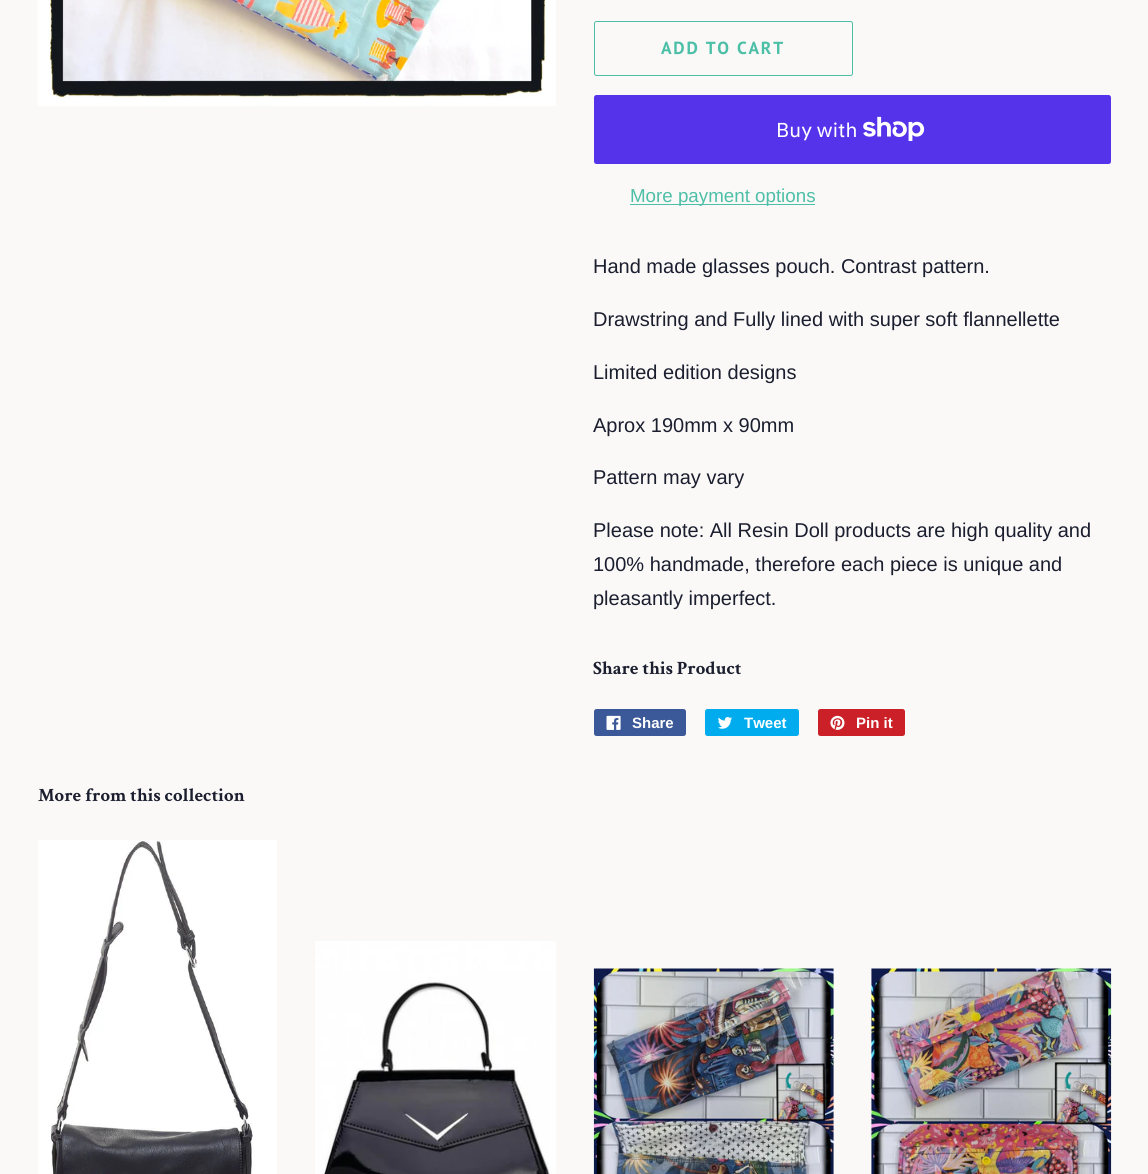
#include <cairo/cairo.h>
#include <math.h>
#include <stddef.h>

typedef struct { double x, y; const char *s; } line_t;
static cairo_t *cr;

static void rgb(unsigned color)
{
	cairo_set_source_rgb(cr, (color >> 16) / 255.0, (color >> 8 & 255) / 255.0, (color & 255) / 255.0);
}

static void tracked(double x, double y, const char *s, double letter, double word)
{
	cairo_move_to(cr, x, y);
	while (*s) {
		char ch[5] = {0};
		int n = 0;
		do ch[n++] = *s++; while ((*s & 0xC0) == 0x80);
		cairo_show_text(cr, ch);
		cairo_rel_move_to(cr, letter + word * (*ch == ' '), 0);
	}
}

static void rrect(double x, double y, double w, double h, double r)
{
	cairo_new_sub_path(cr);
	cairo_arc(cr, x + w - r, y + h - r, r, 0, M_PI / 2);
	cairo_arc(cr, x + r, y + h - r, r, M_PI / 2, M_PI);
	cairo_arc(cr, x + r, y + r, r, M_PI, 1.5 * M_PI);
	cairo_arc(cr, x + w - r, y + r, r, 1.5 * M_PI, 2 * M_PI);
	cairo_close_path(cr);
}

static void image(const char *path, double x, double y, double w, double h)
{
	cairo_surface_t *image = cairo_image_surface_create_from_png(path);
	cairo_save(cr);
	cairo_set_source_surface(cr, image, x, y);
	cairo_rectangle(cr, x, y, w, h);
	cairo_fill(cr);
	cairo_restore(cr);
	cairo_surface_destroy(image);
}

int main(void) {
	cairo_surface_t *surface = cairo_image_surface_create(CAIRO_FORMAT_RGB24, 1148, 1174);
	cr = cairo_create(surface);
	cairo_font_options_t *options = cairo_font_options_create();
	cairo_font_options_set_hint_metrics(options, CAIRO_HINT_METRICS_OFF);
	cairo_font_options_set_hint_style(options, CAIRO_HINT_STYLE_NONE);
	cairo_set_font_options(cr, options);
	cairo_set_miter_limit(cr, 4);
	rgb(0xfaf9f7);
	cairo_paint(cr);
	image("img/1.png", 37, 0, 519, 106);
	rrect(594.5, 21.5, 258, 54, 2);
	rgb(0x4ebfa7);
	cairo_set_line_width(cr, 1);
	cairo_stroke(cr);
	rgb(0x5433eb);
	rrect(594, 95, 517, 69, 2.5);
	cairo_fill(cr);
	image("img/2.png", 863, 116, 62, 25);
	rgb(0x4ebfa7);
	cairo_rectangle(cr, 630, 204, 185, 1);
	cairo_fill(cr);
	rgb(0x3b5998);
	rrect(594, 709, 92, 27, 2.5);
	cairo_fill(cr);
	image("img/3.png", 606, 715, 15, 15);
	rgb(0x00aced);
	rrect(705, 709, 94, 27, 2.5);
	cairo_fill(cr);
	image("img/4.png", 718, 717, 14, 12);
	rgb(0xcb2027);
	rrect(818, 709, 87, 27, 2.5);
	cairo_fill(cr);
	image("img/5.png", 830, 715, 15, 15);
	image("img/6.png", 38, 840, 239, 334);
	image("img/7.png", 315, 941, 241, 233);
	image("img/8.png", 593, 968, 241, 206);
	image("img/9.png", 871, 968, 241, 206);
	cairo_select_font_face(cr, "PT Sans", CAIRO_FONT_SLANT_NORMAL, CAIRO_FONT_WEIGHT_BOLD);
	cairo_set_font_size(cr, 17.5);
	rgb(0x4ebfa7);
	tracked(661, 54, "ADD TO CART", 1.75, 0);
	cairo_select_font_face(cr, "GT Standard", CAIRO_FONT_SLANT_NORMAL, CAIRO_FONT_WEIGHT_NORMAL);
	cairo_set_font_size(cr, 20);
	rgb(0xffffff);
	cairo_move_to(cr, 776, 137);
	cairo_show_text(cr, "Buy with");
	cairo_select_font_face(cr, "Liberation Sans", CAIRO_FONT_SLANT_NORMAL, CAIRO_FONT_WEIGHT_NORMAL);
	cairo_set_font_size(cr, 18.75);
	rgb(0x4ebfa7);
	cairo_move_to(cr, 630, 202);
	cairo_show_text(cr, "More payment options");
	cairo_set_font_size(cr, 20);
	rgb(0x1b1e2f);
	{
		static const line_t items[] = {
			{593, 273, "Hand made glasses pouch. Contrast pattern."},
			{593, 326, "Drawstring and Fully lined with super soft flannellette"},
			{593, 379, "Limited edition designs"},
			{593, 432, "Aprox 190mm x 90mm"},
			{593, 484, "Pattern may vary"},
			{593, 537, "Please note: All Resin Doll products are high quality and"},
			{593, 571, "100% handmade, therefore each piece is unique and"},
			{593, 605, "pleasantly imperfect."},
		};
		for (size_t i = 0; i < sizeof items / sizeof *items; i++) {
			cairo_move_to(cr, items[i].x, items[i].y);
			cairo_show_text(cr, items[i].s);
		}
	}
	cairo_select_font_face(cr, "Crimson Text", CAIRO_FONT_SLANT_NORMAL, CAIRO_FONT_WEIGHT_BOLD);
	cairo_set_font_size(cr, 18.75);
	cairo_move_to(cr, 593, 674);
	cairo_show_text(cr, "Share this Product");
	cairo_select_font_face(cr, "Liberation Sans", CAIRO_FONT_SLANT_NORMAL, CAIRO_FONT_WEIGHT_BOLD);
	cairo_set_font_size(cr, 15);
	rgb(0xffffff);
	{
		static const line_t items[] = {
			{632, 728, "Share"},
			{744, 728, "Tweet"},
			{856, 728, "Pin it"},
		};
		for (size_t i = 0; i < sizeof items / sizeof *items; i++) {
			cairo_move_to(cr, items[i].x, items[i].y);
			cairo_show_text(cr, items[i].s);
		}
	}
	cairo_select_font_face(cr, "Crimson Text", CAIRO_FONT_SLANT_NORMAL, CAIRO_FONT_WEIGHT_BOLD);
	cairo_set_font_size(cr, 18.75);
	rgb(0x1b1e2f);
	cairo_move_to(cr, 38, 801);
	cairo_show_text(cr, "More from this collection");
	cairo_surface_write_to_png(surface, "page.png");
	cairo_font_options_destroy(options);
	cairo_destroy(cr);
	cairo_surface_destroy(surface);
	return 0;
}
